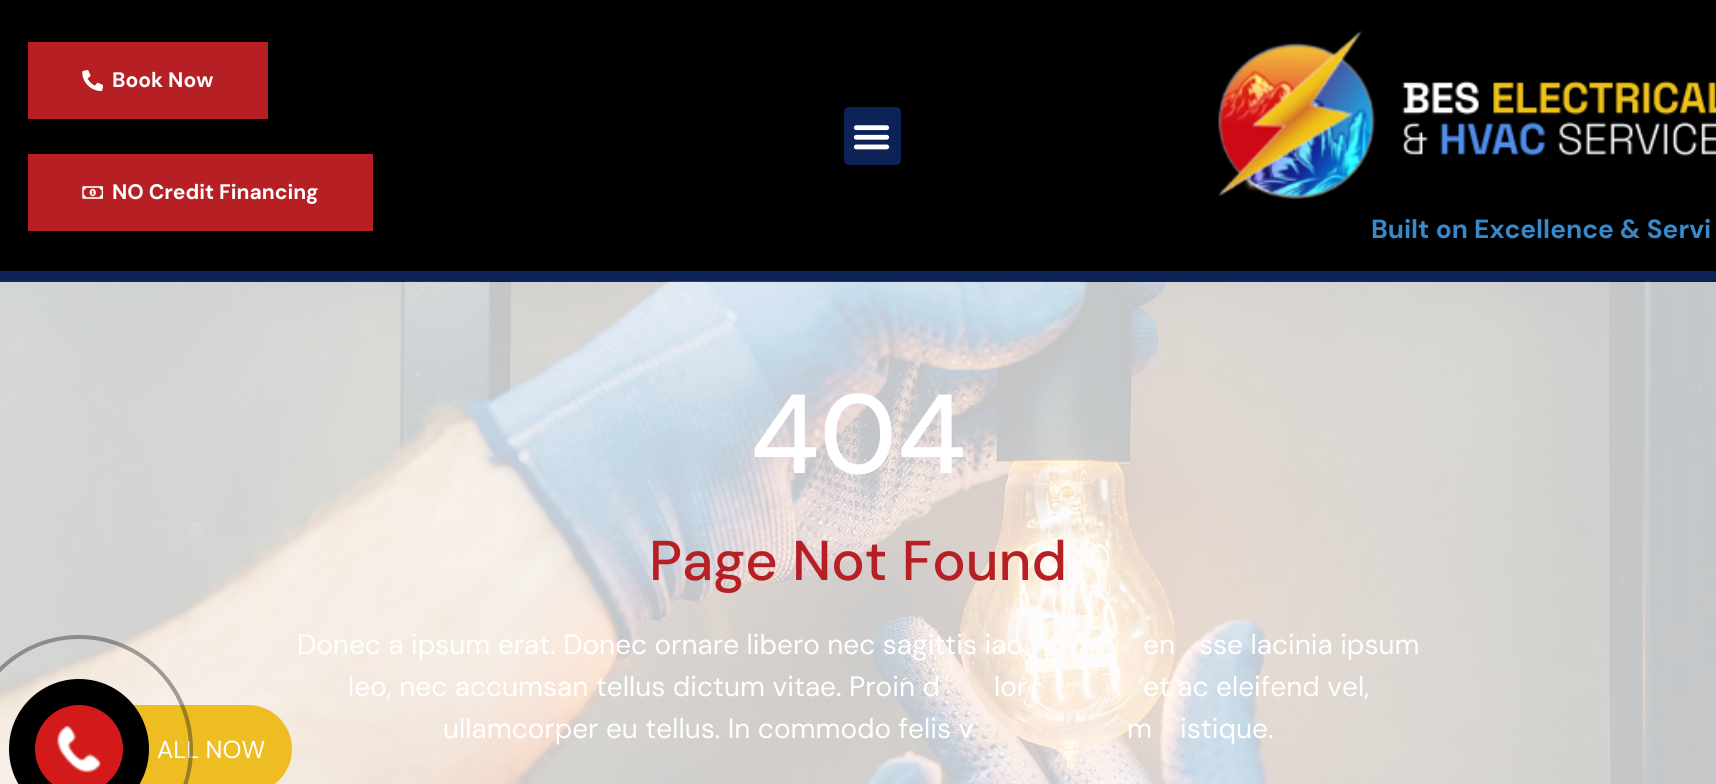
#include <cairo/cairo.h>
#include <math.h>
#include <stddef.h>

typedef struct { double x, y; const char *s; } line_t;
static cairo_t *cr;

static void rgb(unsigned color)
{
	cairo_set_source_rgb(cr, (color >> 16) / 255.0, (color >> 8 & 255) / 255.0, (color & 255) / 255.0);
}

static void rrect(double x, double y, double w, double h, double r)
{
	cairo_new_sub_path(cr);
	cairo_arc(cr, x + w - r, y + h - r, r, 0, M_PI / 2);
	cairo_arc(cr, x + r, y + h - r, r, M_PI / 2, M_PI);
	cairo_arc(cr, x + r, y + r, r, M_PI, 1.5 * M_PI);
	cairo_arc(cr, x + w - r, y + r, r, 1.5 * M_PI, 2 * M_PI);
	cairo_close_path(cr);
}

static void image(const char *path, double x, double y, double w, double h)
{
	cairo_surface_t *image = cairo_image_surface_create_from_png(path);
	cairo_save(cr);
	cairo_set_source_surface(cr, image, x, y);
	cairo_rectangle(cr, x, y, w, h);
	cairo_fill(cr);
	cairo_restore(cr);
	cairo_surface_destroy(image);
}

int main(void) {
	cairo_surface_t *surface = cairo_image_surface_create(CAIRO_FORMAT_RGB24, 1716, 784);
	cr = cairo_create(surface);
	cairo_font_options_t *options = cairo_font_options_create();
	cairo_font_options_set_hint_metrics(options, CAIRO_HINT_METRICS_OFF);
	cairo_font_options_set_hint_style(options, CAIRO_HINT_STYLE_NONE);
	cairo_set_font_options(cr, options);
	cairo_set_miter_limit(cr, 4);
	rgb(0x000000);
	cairo_paint(cr);
	rgb(0x0d2257);
	cairo_rectangle(cr, 0, 271, 1716, 11);
	cairo_fill(cr);
	rgb(0xb61f24);
	cairo_rectangle(cr, 28, 42, 240, 77);
	cairo_fill(cr);
	image("img/1.png", 82, 70, 21, 21);
	cairo_rectangle(cr, 28, 154, 345, 77);
	cairo_fill(cr);
	image("img/2.png", 82, 186, 21, 13);
	rgb(0x0d2257);
	rrect(844, 107, 57, 58, 5);
	cairo_fill(cr);
	image("img/3.png", 853, 125, 37, 25);
	image("img/4.png", 1217, 31, 499, 169);
	image("img/5.png", 0, 281, 1716, 503);
	rgb(0xedbd21);
	rrect(35, 705, 257, 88, 44);
	cairo_fill(cr);
	cairo_select_font_face(cr, "DM Sans", CAIRO_FONT_SLANT_NORMAL, CAIRO_FONT_WEIGHT_BOLD);
	cairo_set_font_size(cr, 21);
	rgb(0xffffff);
	cairo_move_to(cr, 112, 87);
	cairo_show_text(cr, "Book Now");
	cairo_move_to(cr, 112, 199);
	cairo_show_text(cr, "NO Credit Financing");
	cairo_set_font_size(cr, 26.25);
	rgb(0x3789cb);
	cairo_move_to(cr, 1371, 238);
	cairo_show_text(cr, "Built on Excellence & Servi");
	cairo_select_font_face(cr, "DM Sans Medium", CAIRO_FONT_SLANT_NORMAL, CAIRO_FONT_WEIGHT_NORMAL);
	cairo_set_font_size(cr, 112);
	rgb(0xffffff);
	cairo_move_to(cr, 750, 473);
	cairo_show_text(cr, "404");
	cairo_set_font_size(cr, 56);
	rgb(0xb61f24);
	cairo_move_to(cr, 649, 580);
	cairo_show_text(cr, "Page Not Found");
	cairo_select_font_face(cr, "DM Sans", CAIRO_FONT_SLANT_NORMAL, CAIRO_FONT_WEIGHT_NORMAL);
	cairo_set_font_size(cr, 28);
	rgb(0xffffff);
	{
		static const line_t items[] = {
			{297, 654, "Donec a ipsum erat. Donec ornare libero nec sagittis iac"},
			{1143, 654, "en"},
			{1199, 654, "sse lacinia ipsum"},
			{348, 696, "leo, nec accumsan tellus dictum vitae. Proin d"},
			{994, 696, "lor"},
			{1143, 696, "et ac eleifend vel,"},
			{443, 738, "ullamcorper eu tellus. In commodo felis v"},
			{1127, 738, "m"},
			{1180, 738, "istique."},
		};
		for (size_t i = 0; i < sizeof items / sizeof *items; i++) {
			cairo_move_to(cr, items[i].x, items[i].y);
			cairo_show_text(cr, items[i].s);
		}
	}
	cairo_set_font_size(cr, 24.5);
	cairo_move_to(cr, 157, 758);
	cairo_show_text(cr, "ALL NOW");
	cairo_new_path(cr);
	cairo_arc(cr, 79, 749, 112, 0, 2 * M_PI);
	cairo_set_source_rgba(cr, 0.118, 0.118, 0.118, 0.4);
	cairo_set_line_width(cr, 4);
	cairo_stroke(cr);
	rgb(0x000000);
	cairo_arc(cr, 79, 749, 70, 0, 2 * M_PI);
	cairo_fill(cr);
	rgb(0xd21a1b);
	cairo_arc(cr, 79, 749, 44, 0, 2 * M_PI);
	cairo_fill(cr);
	image("img/6.png", 57, 726, 44, 47);
	cairo_surface_write_to_png(surface, "page.png");
	cairo_font_options_destroy(options);
	cairo_destroy(cr);
	cairo_surface_destroy(surface);
	return 0;
}
